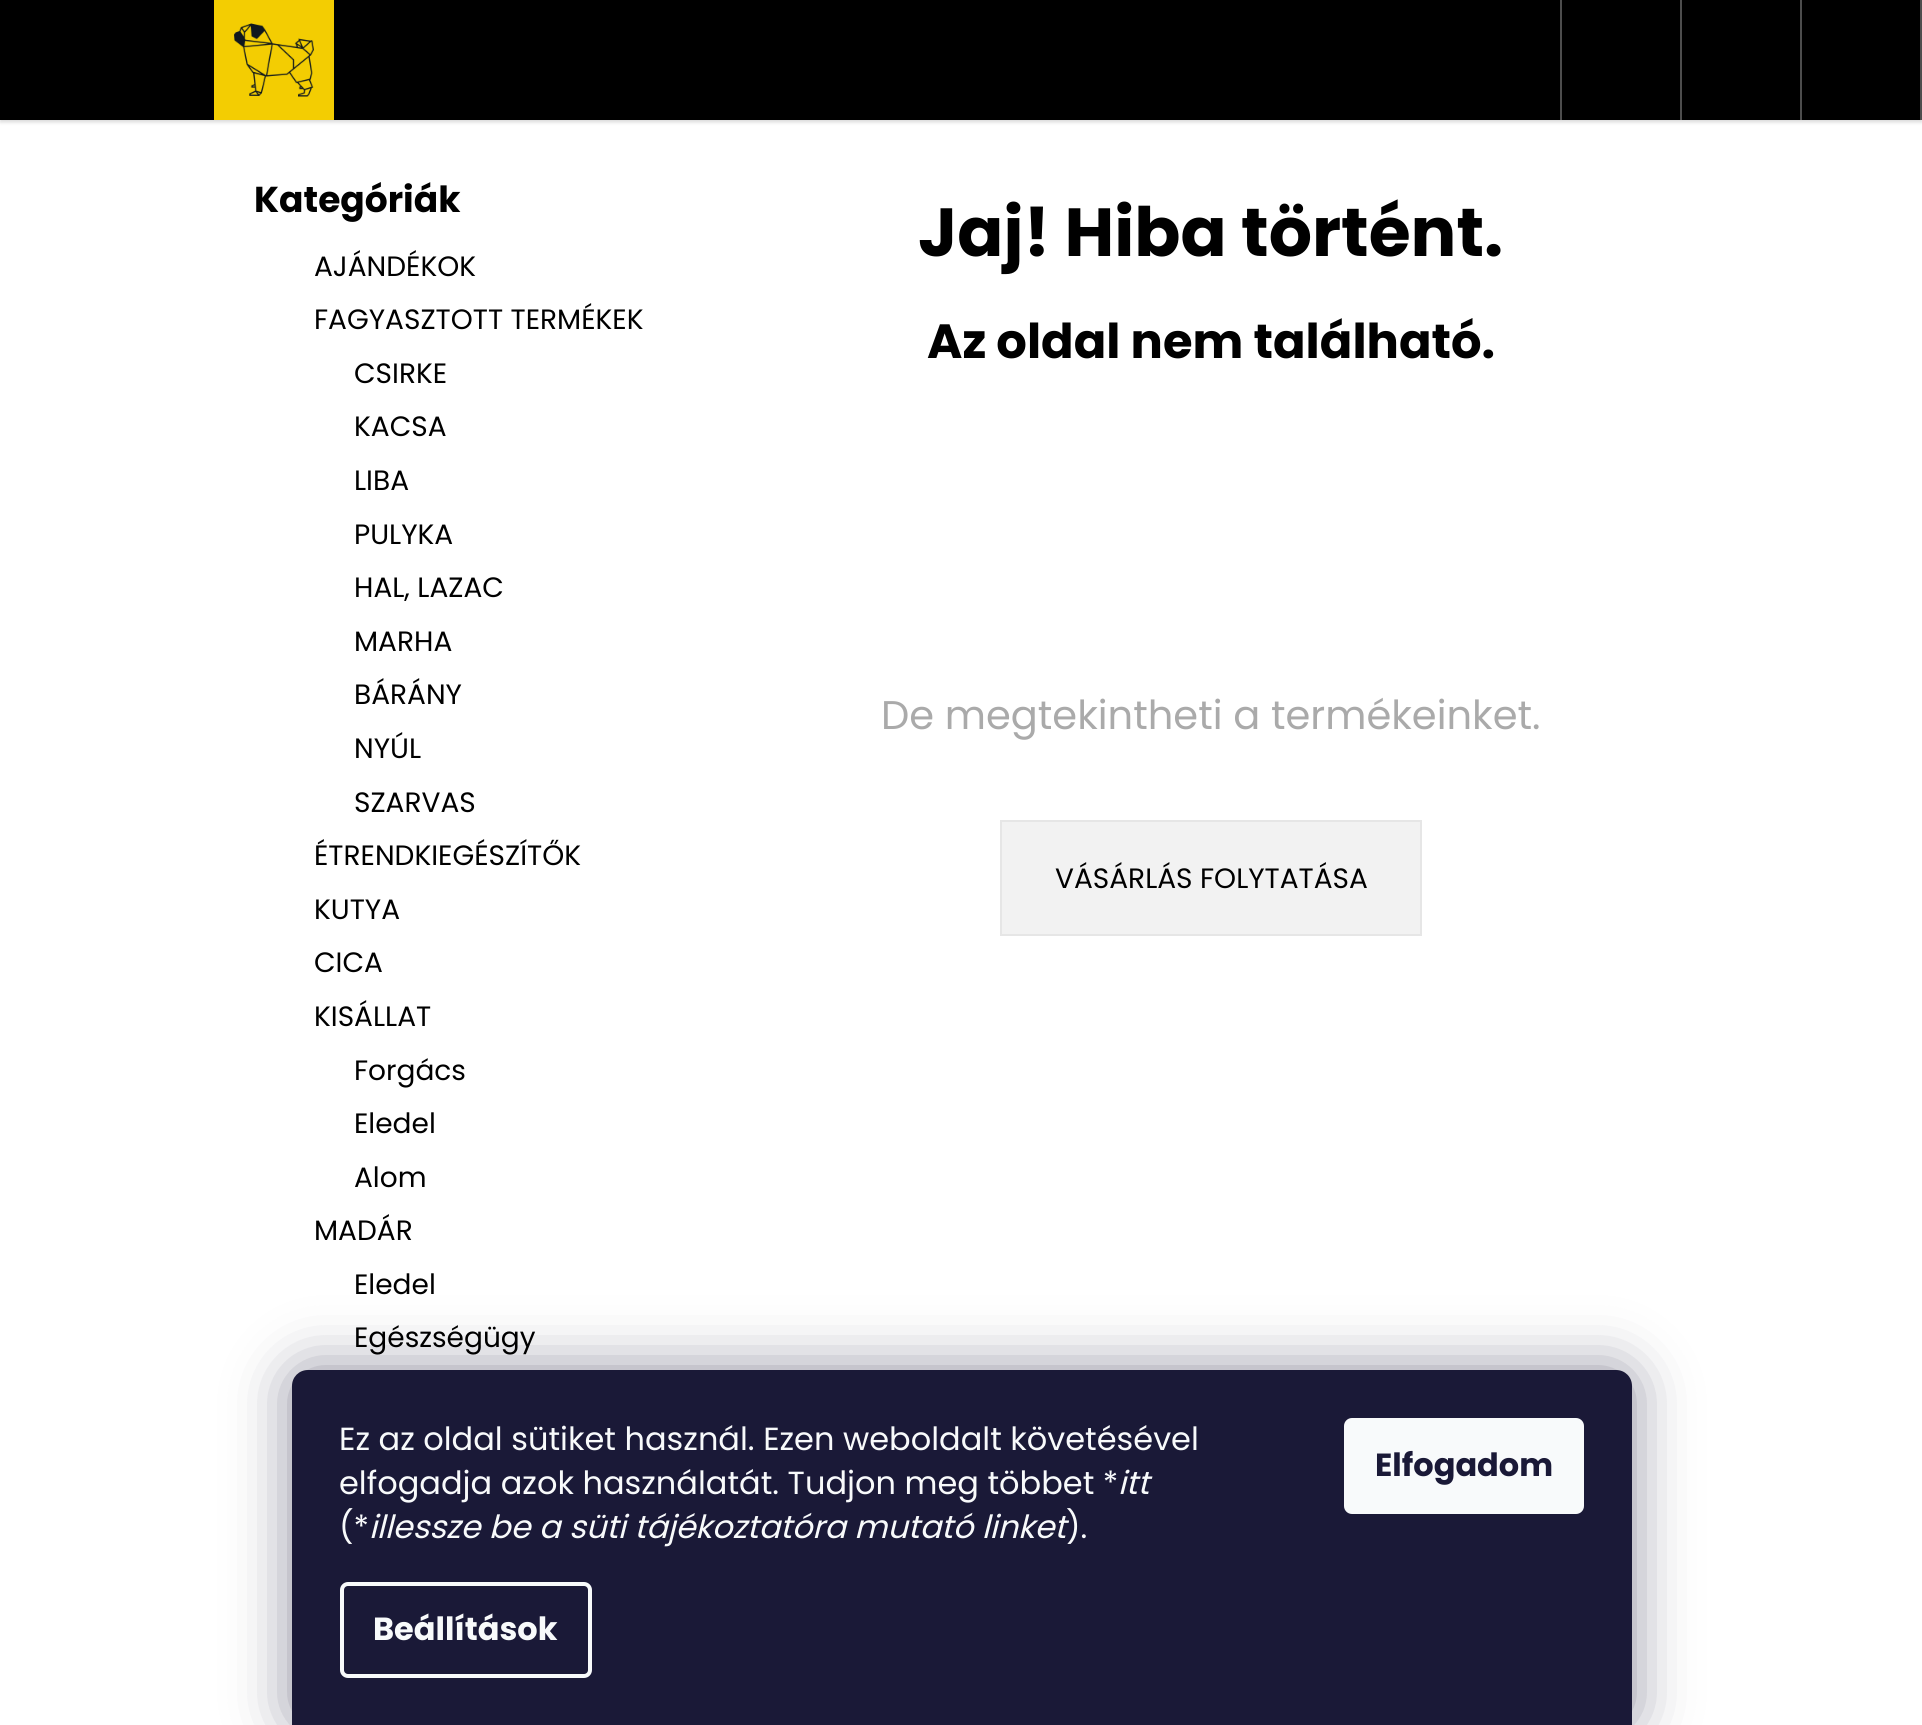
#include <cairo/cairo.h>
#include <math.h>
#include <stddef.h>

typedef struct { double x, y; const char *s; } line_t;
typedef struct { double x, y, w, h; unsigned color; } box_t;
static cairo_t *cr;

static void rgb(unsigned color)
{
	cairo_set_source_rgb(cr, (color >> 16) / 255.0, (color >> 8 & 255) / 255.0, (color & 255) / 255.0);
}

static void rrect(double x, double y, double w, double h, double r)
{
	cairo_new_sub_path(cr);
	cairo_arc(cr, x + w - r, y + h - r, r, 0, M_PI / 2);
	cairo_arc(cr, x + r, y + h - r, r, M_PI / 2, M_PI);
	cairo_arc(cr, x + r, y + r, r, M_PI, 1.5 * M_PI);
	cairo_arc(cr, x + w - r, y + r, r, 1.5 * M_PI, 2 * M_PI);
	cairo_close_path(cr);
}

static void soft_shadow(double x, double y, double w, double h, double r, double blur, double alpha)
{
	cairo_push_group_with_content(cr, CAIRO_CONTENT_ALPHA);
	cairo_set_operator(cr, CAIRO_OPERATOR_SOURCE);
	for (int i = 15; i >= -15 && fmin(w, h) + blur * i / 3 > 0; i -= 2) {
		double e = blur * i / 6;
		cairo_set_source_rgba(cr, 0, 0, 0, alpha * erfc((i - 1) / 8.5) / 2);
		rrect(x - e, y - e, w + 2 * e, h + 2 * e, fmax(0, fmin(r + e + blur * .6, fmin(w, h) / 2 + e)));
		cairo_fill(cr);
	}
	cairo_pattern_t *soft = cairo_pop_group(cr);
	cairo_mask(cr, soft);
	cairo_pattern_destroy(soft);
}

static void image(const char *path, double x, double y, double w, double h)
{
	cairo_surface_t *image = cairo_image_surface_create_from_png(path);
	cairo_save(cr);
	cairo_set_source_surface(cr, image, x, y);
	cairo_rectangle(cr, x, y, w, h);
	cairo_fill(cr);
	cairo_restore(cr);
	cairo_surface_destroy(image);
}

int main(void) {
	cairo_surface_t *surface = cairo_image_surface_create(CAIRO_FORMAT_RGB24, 1922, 1725);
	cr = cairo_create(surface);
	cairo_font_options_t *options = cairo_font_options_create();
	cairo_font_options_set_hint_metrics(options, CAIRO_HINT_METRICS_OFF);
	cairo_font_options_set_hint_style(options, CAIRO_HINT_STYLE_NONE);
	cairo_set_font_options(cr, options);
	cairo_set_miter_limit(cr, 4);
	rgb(0xffffff);
	cairo_paint(cr);
	rgb(0x000000);
	soft_shadow(0, 2, 1922, 120, 0, 2, 0.16);
	rgb(0x000000);
	cairo_rectangle(cr, 0, 0, 1920, 120);
	cairo_fill(cr);
	image("img/1.png", 214, 0, 120, 120);
	{
		static const box_t items[] = {
			{1920, 0, 2, 120, 0x4d4d4d},
			{1560, 0, 2, 120, 0x4d4d4d},
			{1680, 0, 2, 120, 0x4d4d4d},
			{1800, 0, 2, 120, 0x4d4d4d},
		};
		for (size_t i = 0; i < sizeof items / sizeof *items; i++) {
			rgb(items[i].color);
			cairo_rectangle(cr, items[i].x, items[i].y, items[i].w, items[i].h);
			cairo_fill(cr);
		}
	}
	rgb(0xf2f2f2);
	cairo_rectangle(cr, 1001, 821, 420, 114);
	cairo_fill_preserve(cr);
	rgb(0xe6e6e6);
	cairo_stroke(cr);
	rgb(0x1b1939);
	soft_shadow(292, 1370, 1340, 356, 16, 30, 0.5);
	rgb(0x1a1937);
	cairo_new_path(cr);
	cairo_move_to(cr, 308, 1370);
	cairo_line_to(cr, 1616, 1370);
	cairo_curve_to(cr, 1625, 1370, 1632, 1377, 1632, 1386);
	cairo_line_to(cr, 1632, 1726);
	cairo_line_to(cr, 292, 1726);
	cairo_line_to(cr, 292, 1386);
	cairo_curve_to(cr, 292, 1377, 299, 1370, 308, 1370);
	cairo_close_path(cr);
	cairo_fill(cr);
	rrect(342, 1584, 248, 92, 6);
	rgb(0xf8fafb);
	cairo_set_line_width(cr, 4);
	cairo_stroke(cr);
	rrect(1344, 1418, 240, 96, 8);
	cairo_fill(cr);
	cairo_select_font_face(cr, "Poppins", CAIRO_FONT_SLANT_NORMAL, CAIRO_FONT_WEIGHT_BOLD);
	cairo_set_font_size(cr, 36);
	rgb(0x000000);
	cairo_move_to(cr, 254, 212);
	cairo_show_text(cr, "Kategóriák");
	cairo_select_font_face(cr, "Poppins", CAIRO_FONT_SLANT_NORMAL, CAIRO_FONT_WEIGHT_NORMAL);
	cairo_set_font_size(cr, 28);
	{
		static const line_t items[] = {
			{314, 276, "AJÁNDÉKOK"},
			{314, 329, "FAGYASZTOTT TERMÉKEK"},
			{354, 383, "CSIRKE"},
			{354, 436, "KACSA"},
			{354, 490, "LIBA"},
			{354, 544, "PULYKA"},
			{354, 597, "HAL, LAZAC"},
			{354, 651, "MARHA"},
			{354, 704, "BÁRÁNY"},
			{354, 758, "NYÚL"},
			{354, 812, "SZARVAS"},
			{314, 865, "ÉTRENDKIEGÉSZÍTŐK"},
			{314, 919, "KUTYA"},
			{314, 972, "CICA"},
			{314, 1026, "KISÁLLAT"},
			{354, 1080, "Forgács"},
			{354, 1133, "Eledel"},
			{354, 1187, "Alom"},
			{314, 1240, "MADÁR"},
			{354, 1294, "Eledel"},
			{354, 1347, "Egészségügy"},
		};
		for (size_t i = 0; i < sizeof items / sizeof *items; i++) {
			cairo_move_to(cr, items[i].x, items[i].y);
			cairo_show_text(cr, items[i].s);
		}
	}
	cairo_select_font_face(cr, "Poppins", CAIRO_FONT_SLANT_NORMAL, CAIRO_FONT_WEIGHT_BOLD);
	cairo_set_font_size(cr, 68);
	cairo_move_to(cr, 918, 256);
	cairo_show_text(cr, "Jaj! Hiba történt.");
	cairo_set_font_size(cr, 48);
	cairo_move_to(cr, 927, 358);
	cairo_show_text(cr, "Az oldal nem található.");
	cairo_select_font_face(cr, "Poppins", CAIRO_FONT_SLANT_NORMAL, CAIRO_FONT_WEIGHT_NORMAL);
	cairo_set_font_size(cr, 40);
	rgb(0xaaaaaa);
	cairo_move_to(cr, 881, 729);
	cairo_show_text(cr, "De megtekintheti a termékeinket.");
	cairo_set_font_size(cr, 28);
	rgb(0x000000);
	cairo_move_to(cr, 1055, 888);
	cairo_show_text(cr, "VÁSÁRLÁS FOLYTATÁSA");
	cairo_set_font_size(cr, 32);
	rgb(0xf8fafb);
	cairo_move_to(cr, 339, 1450);
	cairo_show_text(cr, "Ez az oldal sütiket használ. Ezen weboldalt követésével");
	cairo_move_to(cr, 339, 1494);
	cairo_show_text(cr, "elfogadja azok használatát. Tudjon meg többet *");
	cairo_select_font_face(cr, "Poppins", CAIRO_FONT_SLANT_ITALIC, CAIRO_FONT_WEIGHT_NORMAL);
	cairo_move_to(cr, 1118, 1494);
	cairo_show_text(cr, "itt");
	cairo_select_font_face(cr, "Poppins", CAIRO_FONT_SLANT_NORMAL, CAIRO_FONT_WEIGHT_NORMAL);
	cairo_move_to(cr, 339, 1538);
	cairo_show_text(cr, "(*");
	cairo_select_font_face(cr, "Poppins", CAIRO_FONT_SLANT_ITALIC, CAIRO_FONT_WEIGHT_NORMAL);
	cairo_move_to(cr, 369, 1538);
	cairo_show_text(cr, "illessze be a süti tájékoztatóra mutató linket");
	cairo_select_font_face(cr, "Poppins", CAIRO_FONT_SLANT_NORMAL, CAIRO_FONT_WEIGHT_NORMAL);
	cairo_move_to(cr, 1066, 1538);
	cairo_show_text(cr, ").");
	cairo_select_font_face(cr, "Poppins", CAIRO_FONT_SLANT_NORMAL, CAIRO_FONT_WEIGHT_BOLD);
	cairo_move_to(cr, 373, 1640);
	cairo_show_text(cr, "Beállítások");
	rgb(0x1a1937);
	cairo_move_to(cr, 1375, 1476);
	cairo_show_text(cr, "Elfogadom");
	cairo_surface_write_to_png(surface, "page.png");
	cairo_font_options_destroy(options);
	cairo_destroy(cr);
	cairo_surface_destroy(surface);
	return 0;
}
